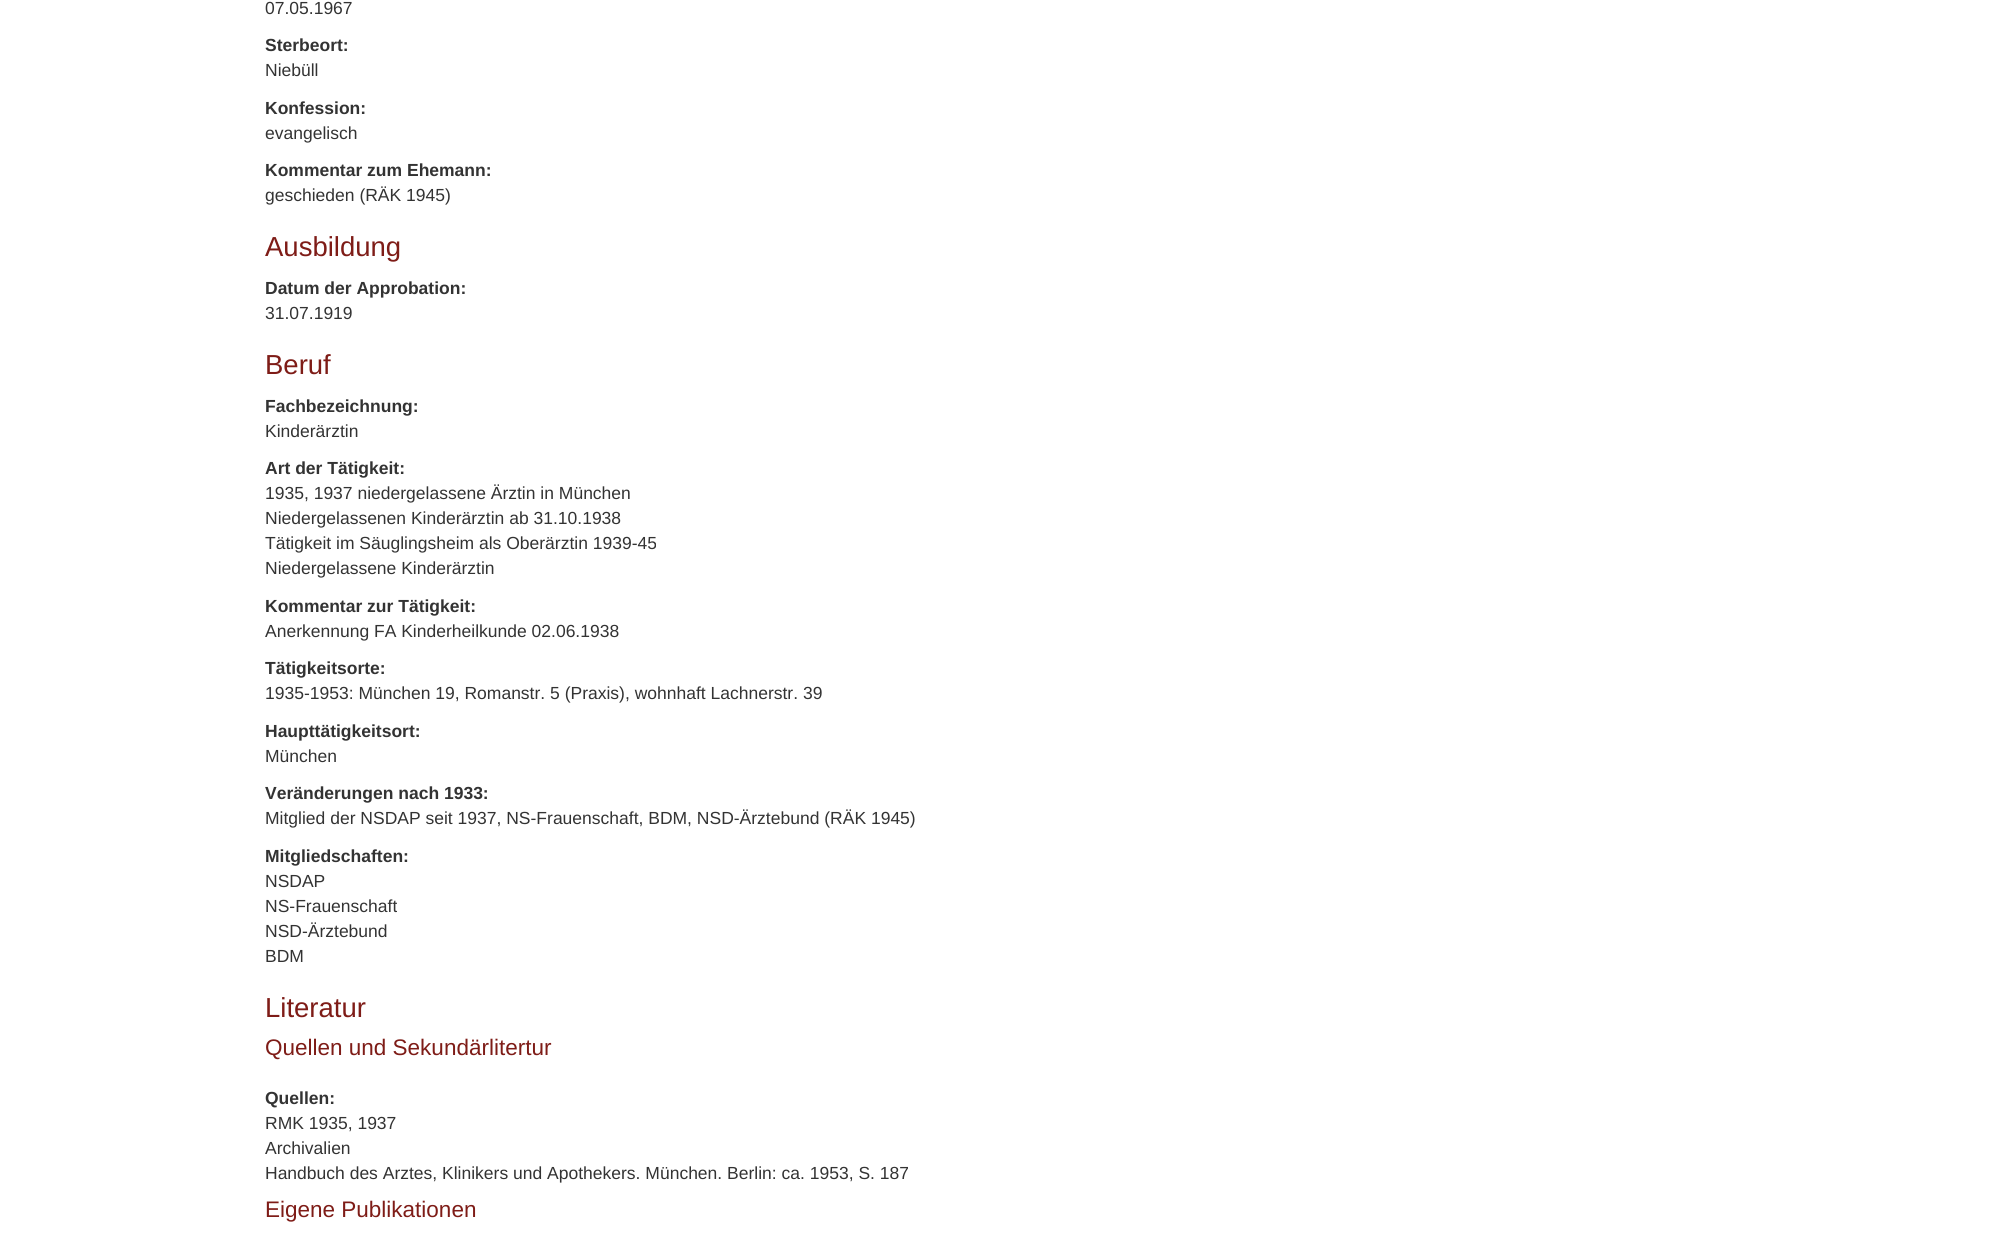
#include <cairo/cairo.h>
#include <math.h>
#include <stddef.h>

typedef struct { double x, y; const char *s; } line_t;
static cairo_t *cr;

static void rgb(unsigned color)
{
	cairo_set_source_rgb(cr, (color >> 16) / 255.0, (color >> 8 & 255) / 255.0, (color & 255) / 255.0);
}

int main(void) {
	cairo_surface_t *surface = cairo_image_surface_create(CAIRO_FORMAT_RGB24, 1992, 1233);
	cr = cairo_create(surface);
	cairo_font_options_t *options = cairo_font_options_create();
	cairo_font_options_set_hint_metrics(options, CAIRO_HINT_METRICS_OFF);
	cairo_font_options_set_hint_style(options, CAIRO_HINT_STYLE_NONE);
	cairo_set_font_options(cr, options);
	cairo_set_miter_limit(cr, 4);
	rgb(0xffffff);
	cairo_paint(cr);
	cairo_select_font_face(cr, "Liberation Sans", CAIRO_FONT_SLANT_NORMAL, CAIRO_FONT_WEIGHT_NORMAL);
	cairo_set_font_size(cr, 17.5);
	rgb(0x333333);
	cairo_move_to(cr, 265, 14);
	cairo_show_text(cr, "07.05.1967");
	cairo_select_font_face(cr, "Liberation Sans", CAIRO_FONT_SLANT_NORMAL, CAIRO_FONT_WEIGHT_BOLD);
	cairo_move_to(cr, 265, 51);
	cairo_show_text(cr, "Sterbeort:");
	cairo_select_font_face(cr, "Liberation Sans", CAIRO_FONT_SLANT_NORMAL, CAIRO_FONT_WEIGHT_NORMAL);
	cairo_move_to(cr, 265, 76);
	cairo_show_text(cr, "Niebüll");
	cairo_select_font_face(cr, "Liberation Sans", CAIRO_FONT_SLANT_NORMAL, CAIRO_FONT_WEIGHT_BOLD);
	cairo_move_to(cr, 265, 114);
	cairo_show_text(cr, "Konfession:");
	cairo_select_font_face(cr, "Liberation Sans", CAIRO_FONT_SLANT_NORMAL, CAIRO_FONT_WEIGHT_NORMAL);
	cairo_move_to(cr, 265, 139);
	cairo_show_text(cr, "evangelisch");
	cairo_select_font_face(cr, "Liberation Sans", CAIRO_FONT_SLANT_NORMAL, CAIRO_FONT_WEIGHT_BOLD);
	cairo_move_to(cr, 265, 176);
	cairo_show_text(cr, "Kommentar zum Ehemann:");
	cairo_select_font_face(cr, "Liberation Sans", CAIRO_FONT_SLANT_NORMAL, CAIRO_FONT_WEIGHT_NORMAL);
	cairo_move_to(cr, 265, 201);
	cairo_show_text(cr, "geschieden (RÄK 1945)");
	cairo_set_font_size(cr, 27.5);
	rgb(0x7e1c17);
	cairo_move_to(cr, 265, 256);
	cairo_show_text(cr, "Ausbildung");
	cairo_select_font_face(cr, "Liberation Sans", CAIRO_FONT_SLANT_NORMAL, CAIRO_FONT_WEIGHT_BOLD);
	cairo_set_font_size(cr, 17.5);
	rgb(0x333333);
	cairo_move_to(cr, 265, 294);
	cairo_show_text(cr, "Datum der Approbation:");
	cairo_select_font_face(cr, "Liberation Sans", CAIRO_FONT_SLANT_NORMAL, CAIRO_FONT_WEIGHT_NORMAL);
	cairo_move_to(cr, 265, 319);
	cairo_show_text(cr, "31.07.1919");
	cairo_set_font_size(cr, 27.5);
	rgb(0x7e1c17);
	cairo_move_to(cr, 265, 374);
	cairo_show_text(cr, "Beruf");
	cairo_select_font_face(cr, "Liberation Sans", CAIRO_FONT_SLANT_NORMAL, CAIRO_FONT_WEIGHT_BOLD);
	cairo_set_font_size(cr, 17.5);
	rgb(0x333333);
	cairo_move_to(cr, 265, 412);
	cairo_show_text(cr, "Fachbezeichnung:");
	cairo_select_font_face(cr, "Liberation Sans", CAIRO_FONT_SLANT_NORMAL, CAIRO_FONT_WEIGHT_NORMAL);
	cairo_move_to(cr, 265, 437);
	cairo_show_text(cr, "Kinderärztin");
	cairo_select_font_face(cr, "Liberation Sans", CAIRO_FONT_SLANT_NORMAL, CAIRO_FONT_WEIGHT_BOLD);
	cairo_move_to(cr, 265, 474);
	cairo_show_text(cr, "Art der Tätigkeit:");
	cairo_select_font_face(cr, "Liberation Sans", CAIRO_FONT_SLANT_NORMAL, CAIRO_FONT_WEIGHT_NORMAL);
	{
		static const line_t items[] = {
			{265, 499, "1935, 1937 niedergelassene Ärztin in München"},
			{265, 524, "Niedergelassenen Kinderärztin ab 31.10.1938"},
			{265, 549, "Tätigkeit im Säuglingsheim als Oberärztin 1939-45"},
			{265, 574, "Niedergelassene Kinderärztin"},
		};
		for (size_t i = 0; i < sizeof items / sizeof *items; i++) {
			cairo_move_to(cr, items[i].x, items[i].y);
			cairo_show_text(cr, items[i].s);
		}
	}
	cairo_select_font_face(cr, "Liberation Sans", CAIRO_FONT_SLANT_NORMAL, CAIRO_FONT_WEIGHT_BOLD);
	cairo_move_to(cr, 265, 612);
	cairo_show_text(cr, "Kommentar zur Tätigkeit:");
	cairo_select_font_face(cr, "Liberation Sans", CAIRO_FONT_SLANT_NORMAL, CAIRO_FONT_WEIGHT_NORMAL);
	cairo_move_to(cr, 265, 637);
	cairo_show_text(cr, "Anerkennung FA Kinderheilkunde 02.06.1938");
	cairo_select_font_face(cr, "Liberation Sans", CAIRO_FONT_SLANT_NORMAL, CAIRO_FONT_WEIGHT_BOLD);
	cairo_move_to(cr, 265, 674);
	cairo_show_text(cr, "Tätigkeitsorte:");
	cairo_select_font_face(cr, "Liberation Sans", CAIRO_FONT_SLANT_NORMAL, CAIRO_FONT_WEIGHT_NORMAL);
	cairo_move_to(cr, 265, 699);
	cairo_show_text(cr, "1935-1953: München 19, Romanstr. 5 (Praxis), wohnhaft Lachnerstr. 39");
	cairo_select_font_face(cr, "Liberation Sans", CAIRO_FONT_SLANT_NORMAL, CAIRO_FONT_WEIGHT_BOLD);
	cairo_move_to(cr, 265, 737);
	cairo_show_text(cr, "Haupttätigkeitsort:");
	cairo_select_font_face(cr, "Liberation Sans", CAIRO_FONT_SLANT_NORMAL, CAIRO_FONT_WEIGHT_NORMAL);
	cairo_move_to(cr, 265, 762);
	cairo_show_text(cr, "München");
	cairo_select_font_face(cr, "Liberation Sans", CAIRO_FONT_SLANT_NORMAL, CAIRO_FONT_WEIGHT_BOLD);
	cairo_move_to(cr, 265, 799);
	cairo_show_text(cr, "Veränderungen nach 1933:");
	cairo_select_font_face(cr, "Liberation Sans", CAIRO_FONT_SLANT_NORMAL, CAIRO_FONT_WEIGHT_NORMAL);
	cairo_move_to(cr, 265, 824);
	cairo_show_text(cr, "Mitglied der NSDAP seit 1937, NS-Frauenschaft, BDM, NSD-Ärztebund (RÄK 1945)");
	cairo_select_font_face(cr, "Liberation Sans", CAIRO_FONT_SLANT_NORMAL, CAIRO_FONT_WEIGHT_BOLD);
	cairo_move_to(cr, 265, 862);
	cairo_show_text(cr, "Mitgliedschaften:");
	cairo_select_font_face(cr, "Liberation Sans", CAIRO_FONT_SLANT_NORMAL, CAIRO_FONT_WEIGHT_NORMAL);
	{
		static const line_t items[] = {
			{265, 887, "NSDAP"},
			{265, 912, "NS-Frauenschaft"},
			{265, 937, "NSD-Ärztebund"},
			{265, 962, "BDM"},
		};
		for (size_t i = 0; i < sizeof items / sizeof *items; i++) {
			cairo_move_to(cr, items[i].x, items[i].y);
			cairo_show_text(cr, items[i].s);
		}
	}
	cairo_set_font_size(cr, 27.5);
	rgb(0x7e1c17);
	cairo_move_to(cr, 265, 1017);
	cairo_show_text(cr, "Literatur");
	cairo_set_font_size(cr, 22.5);
	cairo_move_to(cr, 265, 1055);
	cairo_show_text(cr, "Quellen und Sekundärlitertur");
	cairo_select_font_face(cr, "Liberation Sans", CAIRO_FONT_SLANT_NORMAL, CAIRO_FONT_WEIGHT_BOLD);
	cairo_set_font_size(cr, 17.5);
	rgb(0x333333);
	cairo_move_to(cr, 265, 1104);
	cairo_show_text(cr, "Quellen:");
	cairo_select_font_face(cr, "Liberation Sans", CAIRO_FONT_SLANT_NORMAL, CAIRO_FONT_WEIGHT_NORMAL);
	{
		static const line_t items[] = {
			{265, 1129, "RMK 1935, 1937"},
			{265, 1154, "Archivalien"},
			{265, 1179, "Handbuch des Arztes, Klinikers und Apothekers. München. Berlin: ca. 1953, S. 187"},
		};
		for (size_t i = 0; i < sizeof items / sizeof *items; i++) {
			cairo_move_to(cr, items[i].x, items[i].y);
			cairo_show_text(cr, items[i].s);
		}
	}
	cairo_set_font_size(cr, 22.5);
	rgb(0x7e1c17);
	cairo_move_to(cr, 265, 1217);
	cairo_show_text(cr, "Eigene Publikationen");
	cairo_surface_write_to_png(surface, "page.png");
	cairo_font_options_destroy(options);
	cairo_destroy(cr);
	cairo_surface_destroy(surface);
	return 0;
}
